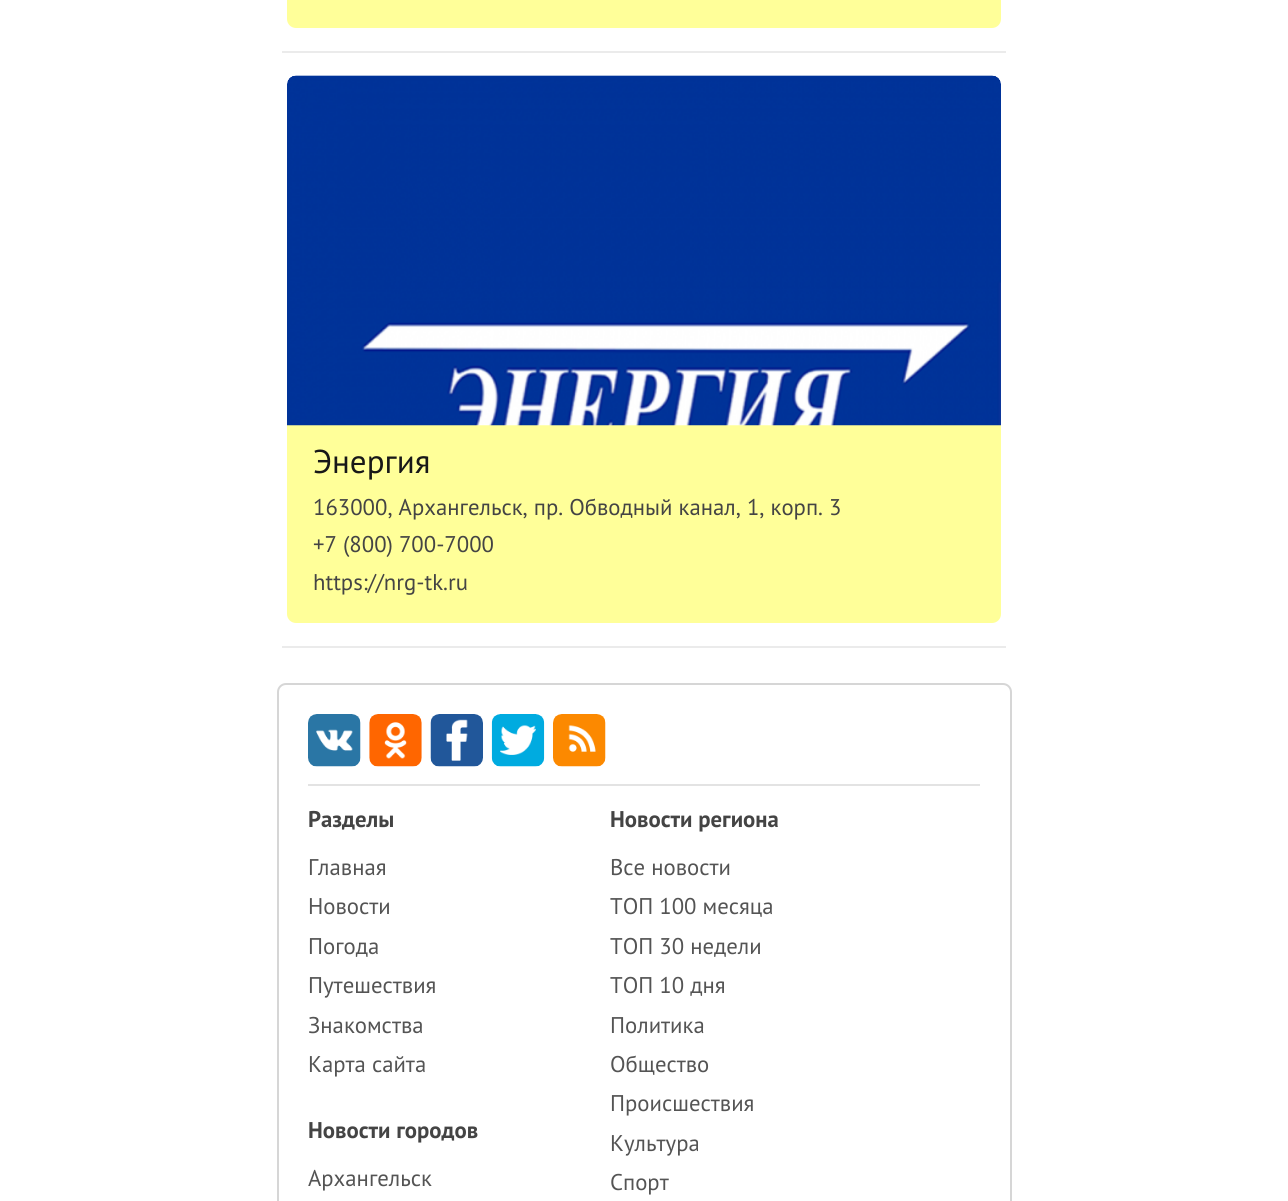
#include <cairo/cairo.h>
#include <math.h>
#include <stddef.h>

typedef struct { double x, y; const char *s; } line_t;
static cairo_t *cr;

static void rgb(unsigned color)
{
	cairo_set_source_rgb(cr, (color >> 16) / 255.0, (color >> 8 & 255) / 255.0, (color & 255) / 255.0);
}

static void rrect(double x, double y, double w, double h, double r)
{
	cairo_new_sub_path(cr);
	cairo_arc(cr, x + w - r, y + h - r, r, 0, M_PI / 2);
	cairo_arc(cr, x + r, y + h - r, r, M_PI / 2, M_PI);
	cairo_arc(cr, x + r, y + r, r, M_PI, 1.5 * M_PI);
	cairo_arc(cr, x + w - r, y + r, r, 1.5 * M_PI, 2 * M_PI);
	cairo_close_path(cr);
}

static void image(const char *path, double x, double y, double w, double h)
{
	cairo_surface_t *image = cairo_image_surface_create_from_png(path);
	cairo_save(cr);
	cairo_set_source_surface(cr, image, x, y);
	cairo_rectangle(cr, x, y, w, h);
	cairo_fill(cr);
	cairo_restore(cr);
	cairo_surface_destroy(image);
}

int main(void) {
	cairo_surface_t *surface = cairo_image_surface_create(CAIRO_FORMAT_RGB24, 1288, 1201);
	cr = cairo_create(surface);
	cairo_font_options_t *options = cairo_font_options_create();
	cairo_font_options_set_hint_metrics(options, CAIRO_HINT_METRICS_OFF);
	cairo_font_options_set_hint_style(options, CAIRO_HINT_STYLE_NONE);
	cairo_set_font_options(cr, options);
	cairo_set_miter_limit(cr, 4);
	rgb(0xffffff);
	cairo_paint(cr);
	rgb(0xebebeb);
	cairo_rectangle(cr, 282, 51, 724, 2);
	cairo_fill(cr);
	rgb(0xffff99);
	cairo_new_path(cr);
	cairo_move_to(cr, 287, -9);
	cairo_line_to(cr, 1001, -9);
	cairo_line_to(cr, 1001, 19);
	cairo_curve_to(cr, 1001, 24, 997, 28, 992, 28);
	cairo_line_to(cr, 296, 28);
	cairo_curve_to(cr, 291, 28, 287, 24, 287, 19);
	cairo_close_path(cr);
	cairo_fill(cr);
	rgb(0xebebeb);
	cairo_rectangle(cr, 282, 646, 724, 2);
	cairo_fill(cr);
	rgb(0xffff99);
	cairo_new_path(cr);
	cairo_move_to(cr, 287, 425);
	cairo_line_to(cr, 1001, 425);
	cairo_line_to(cr, 1001, 614);
	cairo_curve_to(cr, 1001, 619, 997, 623, 992, 623);
	cairo_line_to(cr, 296, 623);
	cairo_curve_to(cr, 291, 623, 287, 619, 287, 614);
	cairo_close_path(cr);
	cairo_fill(cr);
	image("img/1.png", 287, 75, 714, 351);
	rrect(278, 684, 733, 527, 8);
	rgb(0xd6d6d6);
	cairo_stroke(cr);
	rgb(0xe3e3e3);
	cairo_rectangle(cr, 308, 784, 672, 2);
	cairo_fill(cr);
	image("img/2.png", 308, 714, 53, 53);
	image("img/3.png", 369, 714, 53, 53);
	image("img/4.png", 430, 714, 53, 53);
	image("img/5.png", 491, 714, 54, 53);
	image("img/6.png", 553, 714, 53, 53);
	cairo_select_font_face(cr, "PT Sans", CAIRO_FONT_SLANT_NORMAL, CAIRO_FONT_WEIGHT_NORMAL);
	cairo_set_font_size(cr, 33);
	rgb(0x181818);
	cairo_move_to(cr, 313, 473);
	cairo_show_text(cr, "Энергия");
	cairo_set_font_size(cr, 22.75);
	rgb(0x444444);
	{
		static const line_t items[] = {
			{313, 515, "163000, Архангельск, пр. Обводный канал, 1, корп. 3"},
			{313, 552, "+7 (800) 700-7000"},
			{313, 590, "https://nrg-tk.ru"},
		};
		for (size_t i = 0; i < sizeof items / sizeof *items; i++) {
			cairo_move_to(cr, items[i].x, items[i].y);
			cairo_show_text(cr, items[i].s);
		}
	}
	cairo_select_font_face(cr, "PT Sans", CAIRO_FONT_SLANT_NORMAL, CAIRO_FONT_WEIGHT_BOLD);
	cairo_move_to(cr, 308, 827);
	cairo_show_text(cr, "Разделы");
	cairo_select_font_face(cr, "PT Sans", CAIRO_FONT_SLANT_NORMAL, CAIRO_FONT_WEIGHT_NORMAL);
	rgb(0x545454);
	{
		static const line_t items[] = {
			{308, 875, "Главная"},
			{308, 914, "Новости"},
			{308, 954, "Погода"},
			{308, 993, "Путешествия"},
			{308, 1033, "Знакомства"},
			{308, 1072, "Карта сайта"},
		};
		for (size_t i = 0; i < sizeof items / sizeof *items; i++) {
			cairo_move_to(cr, items[i].x, items[i].y);
			cairo_show_text(cr, items[i].s);
		}
	}
	cairo_select_font_face(cr, "PT Sans", CAIRO_FONT_SLANT_NORMAL, CAIRO_FONT_WEIGHT_BOLD);
	rgb(0x444444);
	cairo_move_to(cr, 308, 1138);
	cairo_show_text(cr, "Новости городов");
	cairo_select_font_face(cr, "PT Sans", CAIRO_FONT_SLANT_NORMAL, CAIRO_FONT_WEIGHT_NORMAL);
	rgb(0x545454);
	cairo_move_to(cr, 308, 1186);
	cairo_show_text(cr, "Архангельск");
	cairo_select_font_face(cr, "PT Sans", CAIRO_FONT_SLANT_NORMAL, CAIRO_FONT_WEIGHT_BOLD);
	rgb(0x444444);
	cairo_move_to(cr, 610, 827);
	cairo_show_text(cr, "Новости региона");
	cairo_select_font_face(cr, "PT Sans", CAIRO_FONT_SLANT_NORMAL, CAIRO_FONT_WEIGHT_NORMAL);
	rgb(0x545454);
	{
		static const line_t items[] = {
			{610, 875, "Все новости"},
			{610, 914, "ТОП 100 месяца"},
			{610, 954, "ТОП 30 недели"},
			{610, 993, "ТОП 10 дня"},
			{610, 1033, "Политика"},
			{610, 1072, "Общество"},
			{610, 1111, "Происшествия"},
			{610, 1151, "Культура"},
			{610, 1190, "Спорт"},
		};
		for (size_t i = 0; i < sizeof items / sizeof *items; i++) {
			cairo_move_to(cr, items[i].x, items[i].y);
			cairo_show_text(cr, items[i].s);
		}
	}
	cairo_surface_write_to_png(surface, "page.png");
	cairo_font_options_destroy(options);
	cairo_destroy(cr);
	cairo_surface_destroy(surface);
	return 0;
}
